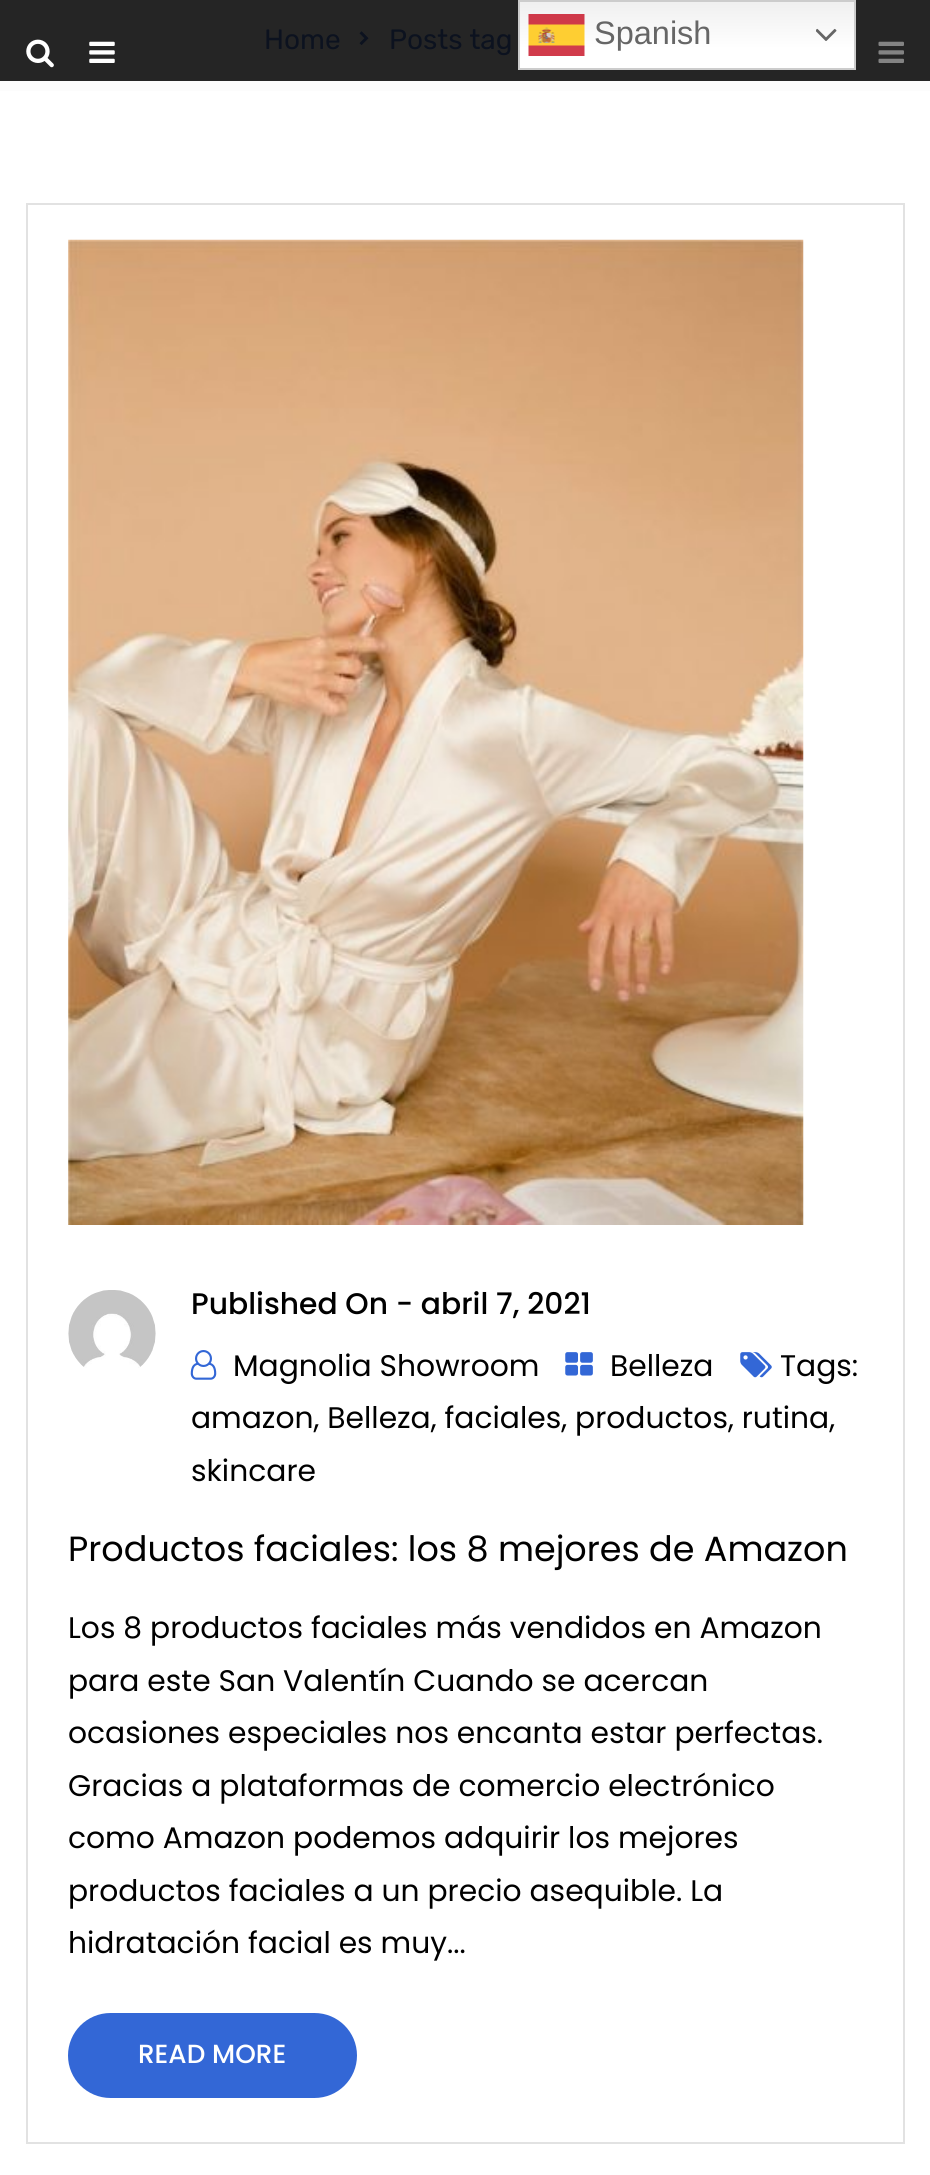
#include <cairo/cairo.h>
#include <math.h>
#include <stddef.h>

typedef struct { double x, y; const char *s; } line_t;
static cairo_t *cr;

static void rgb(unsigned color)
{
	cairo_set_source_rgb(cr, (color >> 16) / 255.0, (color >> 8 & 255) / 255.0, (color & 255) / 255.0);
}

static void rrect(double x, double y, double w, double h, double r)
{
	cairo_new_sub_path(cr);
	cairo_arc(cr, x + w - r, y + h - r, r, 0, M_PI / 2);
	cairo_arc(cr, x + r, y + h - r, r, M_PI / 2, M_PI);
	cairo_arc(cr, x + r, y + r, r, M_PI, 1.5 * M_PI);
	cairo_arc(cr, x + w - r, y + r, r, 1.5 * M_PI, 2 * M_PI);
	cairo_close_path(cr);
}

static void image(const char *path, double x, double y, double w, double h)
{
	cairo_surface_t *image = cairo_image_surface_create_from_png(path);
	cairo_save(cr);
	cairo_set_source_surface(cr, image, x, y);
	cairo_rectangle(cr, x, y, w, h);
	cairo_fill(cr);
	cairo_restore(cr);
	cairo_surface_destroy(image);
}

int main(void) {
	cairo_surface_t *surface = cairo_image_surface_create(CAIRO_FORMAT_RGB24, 930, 2175);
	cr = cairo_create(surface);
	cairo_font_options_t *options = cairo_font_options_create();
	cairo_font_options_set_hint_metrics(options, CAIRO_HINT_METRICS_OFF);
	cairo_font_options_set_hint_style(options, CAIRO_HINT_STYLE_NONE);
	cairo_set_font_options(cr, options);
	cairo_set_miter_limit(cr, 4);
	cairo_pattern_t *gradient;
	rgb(0xffffff);
	cairo_paint(cr);
	rgb(0xfcfcfc);
	cairo_rectangle(cr, 0, 81, 930, 10);
	cairo_fill(cr);
	rgb(0x252525);
	cairo_rectangle(cr, 0, 0, 930, 81);
	cairo_fill(cr);
	gradient = cairo_pattern_create_linear(687, 0, 687, 70);
	cairo_pattern_add_color_stop_rgba(gradient, 0, 0.937, 0.937, 0.937, 1);
	cairo_pattern_add_color_stop_rgba(gradient, 0.7, 1, 1, 1, 1);
	cairo_set_source(cr, gradient);
	cairo_pattern_destroy(gradient);
	cairo_rectangle(cr, 520, 2, 334, 66);
	cairo_fill(cr);
	cairo_rectangle(cr, 519, 1, 336, 68);
	rgb(0xcccccc);
	cairo_stroke(cr);
	image("img/1.png", 528, 14, 57, 42);
	image("img/2.png", 816, 28, 21, 13);
	image("img/3.png", 359, 31, 10, 14);
	image("img/4.png", 26, 39, 28, 29);
	image("img/5.png", 89, 41, 26, 22);
	image("img/6.png", 878, 41, 26, 22);
	cairo_rectangle(cr, 27, 204, 877, 1939);
	rgb(0xe2e2e2);
	cairo_stroke(cr);
	image("img/7.png", 68, 239, 736, 986);
	image("img/8.png", 68, 1290, 88, 78);
	image("img/9.png", 190, 1350, 27, 30);
	image("img/10.png", 565, 1352, 28, 24);
	image("img/11.png", 740, 1352, 32, 26);
	rgb(0x3367d6);
	rrect(68, 2013, 289, 85, 42.5);
	cairo_fill(cr);
	cairo_select_font_face(cr, "Liberation Sans", CAIRO_FONT_SLANT_NORMAL, CAIRO_FONT_WEIGHT_NORMAL);
	cairo_set_font_size(cr, 32.5);
	rgb(0x666666);
	cairo_move_to(cr, 594, 44);
	cairo_show_text(cr, "Spanish");
	cairo_select_font_face(cr, "Rubik", CAIRO_FONT_SLANT_NORMAL, CAIRO_FONT_WEIGHT_NORMAL);
	cairo_set_font_size(cr, 28);
	rgb(0x0c121f);
	cairo_move_to(cr, 264, 49);
	cairo_show_text(cr, "Home");
	cairo_move_to(cr, 389, 49);
	cairo_show_text(cr, "Posts tag");
	cairo_select_font_face(cr, "Poppins Medium", CAIRO_FONT_SLANT_NORMAL, CAIRO_FONT_WEIGHT_NORMAL);
	cairo_set_font_size(cr, 29.75);
	rgb(0x000000);
	cairo_move_to(cr, 191, 1314);
	cairo_show_text(cr, "Published On - abril 7, 2021");
	cairo_select_font_face(cr, "Poppins", CAIRO_FONT_SLANT_NORMAL, CAIRO_FONT_WEIGHT_NORMAL);
	{
		static const line_t items[] = {
			{233, 1376, "Magnolia Showroom"},
			{610, 1376, "Belleza"},
			{780, 1376, "Tags:"},
			{191, 1428, "amazon, Belleza, faciales, productos, rutina,"},
			{191, 1481, "skincare"},
		};
		for (size_t i = 0; i < sizeof items / sizeof *items; i++) {
			cairo_move_to(cr, items[i].x, items[i].y);
			cairo_show_text(cr, items[i].s);
		}
	}
	cairo_set_font_size(cr, 35);
	cairo_move_to(cr, 68, 1561);
	cairo_show_text(cr, "Productos faciales: los 8 mejores de Amazon");
	cairo_set_font_size(cr, 29.75);
	{
		static const line_t items[] = {
			{68, 1638, "Los 8 productos faciales más vendidos en Amazon"},
			{68, 1691, "para este San Valentín Cuando se acercan"},
			{68, 1743, "ocasiones especiales nos encanta estar perfectas."},
			{68, 1796, "Gracias a plataformas de comercio electrónico"},
			{68, 1848, "como Amazon podemos adquirir los mejores"},
			{68, 1901, "productos faciales a un precio asequible. La"},
			{68, 1953, "hidratación facial es muy..."},
		};
		for (size_t i = 0; i < sizeof items / sizeof *items; i++) {
			cairo_move_to(cr, items[i].x, items[i].y);
			cairo_show_text(cr, items[i].s);
		}
	}
	cairo_select_font_face(cr, "Poppins Medium", CAIRO_FONT_SLANT_NORMAL, CAIRO_FONT_WEIGHT_NORMAL);
	cairo_set_font_size(cr, 26.25);
	rgb(0xffffff);
	cairo_move_to(cr, 138, 2063);
	cairo_show_text(cr, "READ MORE");
	cairo_surface_write_to_png(surface, "page.png");
	cairo_font_options_destroy(options);
	cairo_destroy(cr);
	cairo_surface_destroy(surface);
	return 0;
}
